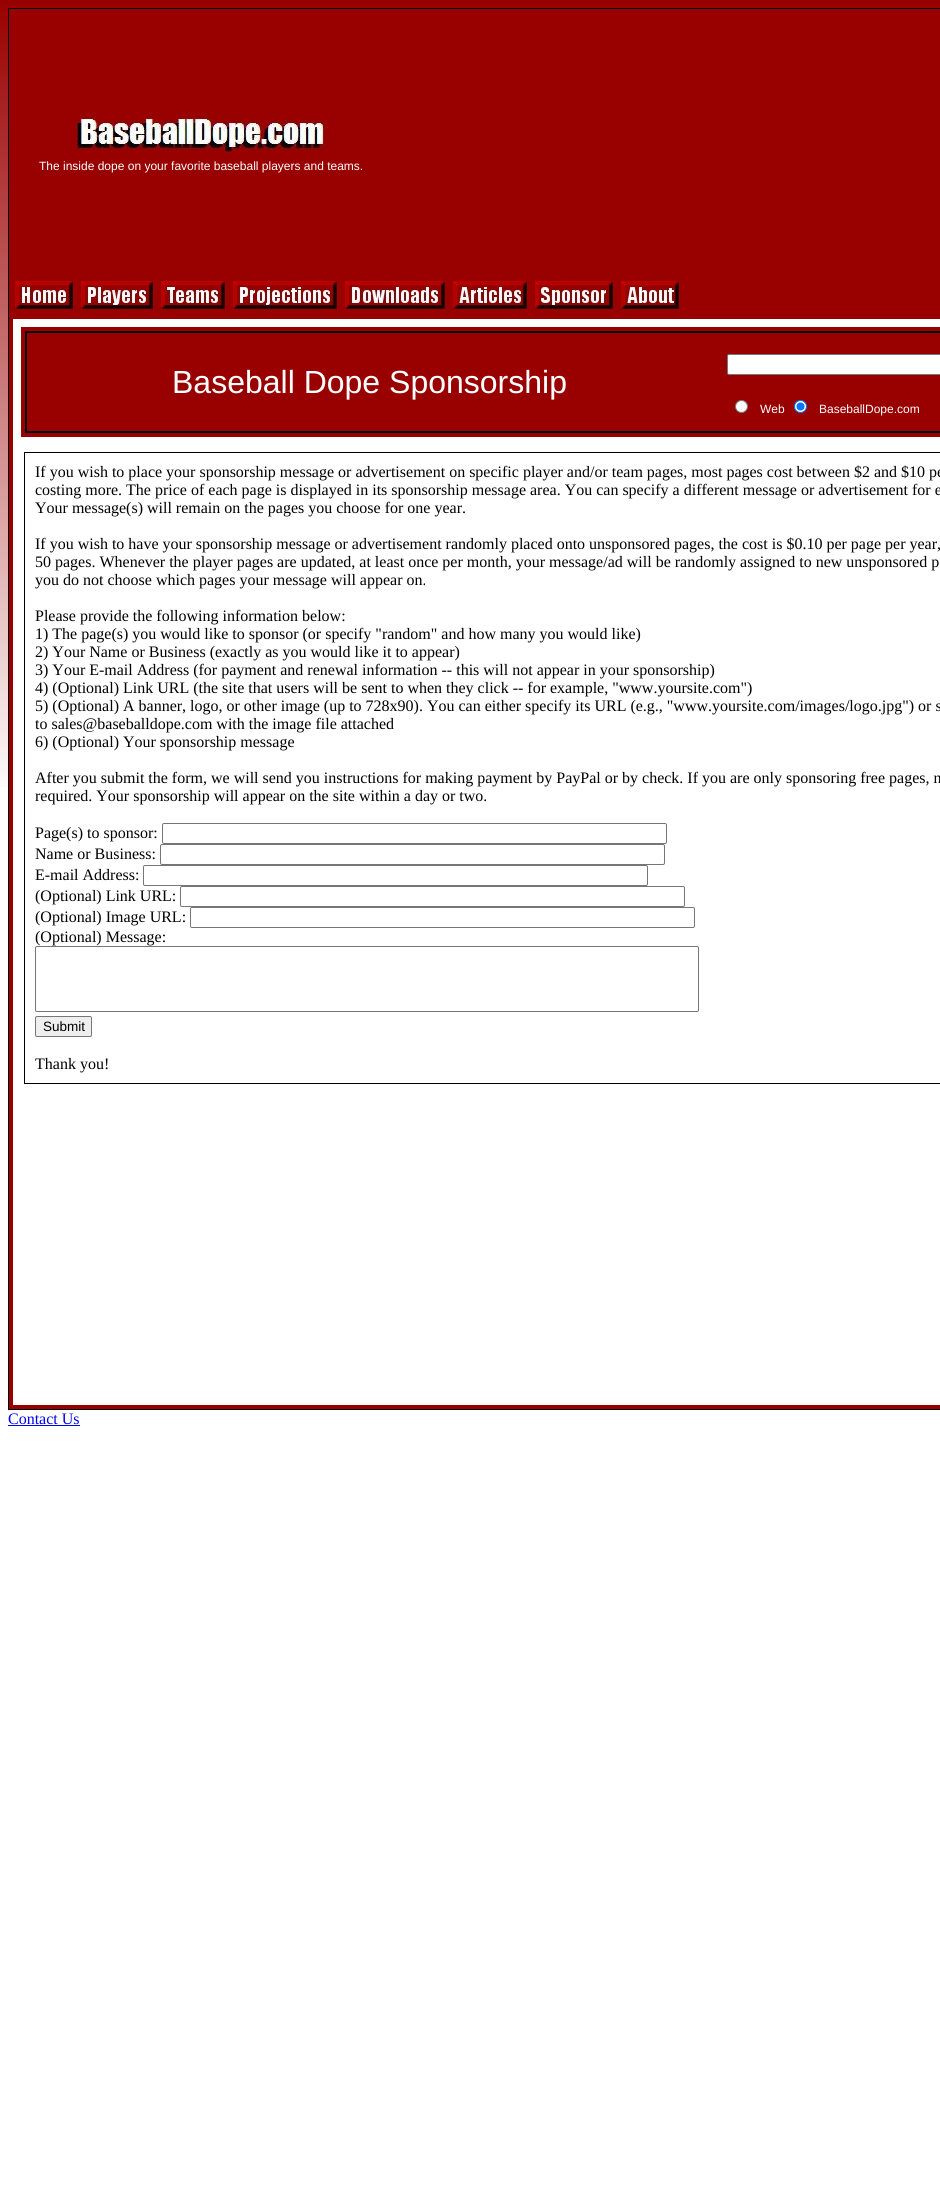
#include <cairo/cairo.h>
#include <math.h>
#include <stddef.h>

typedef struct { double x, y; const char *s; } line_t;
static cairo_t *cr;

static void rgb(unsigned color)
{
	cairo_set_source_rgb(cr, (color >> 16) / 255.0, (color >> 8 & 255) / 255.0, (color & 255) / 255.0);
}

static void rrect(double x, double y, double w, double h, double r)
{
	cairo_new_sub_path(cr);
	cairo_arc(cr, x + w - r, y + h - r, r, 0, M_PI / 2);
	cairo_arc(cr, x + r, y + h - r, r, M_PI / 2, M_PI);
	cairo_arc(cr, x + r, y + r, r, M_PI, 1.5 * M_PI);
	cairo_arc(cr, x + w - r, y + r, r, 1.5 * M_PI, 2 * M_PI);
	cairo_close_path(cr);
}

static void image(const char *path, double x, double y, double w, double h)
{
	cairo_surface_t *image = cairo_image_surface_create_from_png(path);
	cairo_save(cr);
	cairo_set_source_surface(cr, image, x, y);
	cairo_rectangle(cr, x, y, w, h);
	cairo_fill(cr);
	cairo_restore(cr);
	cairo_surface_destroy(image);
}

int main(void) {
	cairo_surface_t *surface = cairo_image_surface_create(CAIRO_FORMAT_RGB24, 940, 2193);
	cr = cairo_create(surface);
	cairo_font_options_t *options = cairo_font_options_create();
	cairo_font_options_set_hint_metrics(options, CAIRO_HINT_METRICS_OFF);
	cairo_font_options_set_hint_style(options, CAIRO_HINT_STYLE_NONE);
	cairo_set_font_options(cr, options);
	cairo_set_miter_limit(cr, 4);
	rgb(0xffffff);
	cairo_paint(cr);
	image("img/1.png", 0, 0, 940, 787);
	rgb(0x990000);
	cairo_rectangle(cr, 8.5, 8.5, 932, 1401);
	cairo_fill_preserve(cr);
	rgb(0x000000);
	cairo_set_line_width(cr, 1);
	cairo_stroke(cr);
	image("img/2.png", 76, 116, 250, 38);
	image("img/3.png", 15, 281, 58, 28);
	image("img/4.png", 81, 281, 72, 28);
	image("img/5.png", 161, 281, 64, 28);
	image("img/6.png", 233, 281, 104, 28);
	image("img/7.png", 345, 281, 100, 28);
	image("img/8.png", 453, 281, 74, 28);
	image("img/9.png", 535, 281, 78, 28);
	image("img/10.png", 621, 281, 58, 28);
	rgb(0xffffff);
	cairo_rectangle(cr, 13, 319, 927, 1086);
	cairo_fill(cr);
	rgb(0x990000);
	cairo_rectangle(cr, 21, 327, 919, 110);
	cairo_fill(cr);
	cairo_rectangle(cr, 26, 332, 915, 100);
	rgb(0x000000);
	cairo_set_line_width(cr, 2);
	cairo_stroke(cr);
	rgb(0xffffff);
	rrect(727.5, 354.5, 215, 20, 1.5);
	cairo_fill_preserve(cr);
	rgb(0x767676);
	cairo_set_line_width(cr, 1);
	cairo_stroke(cr);
	rgb(0xffffff);
	cairo_arc(cr, 741.5, 406.5, 6, 0, 2 * M_PI);
	cairo_fill_preserve(cr);
	rgb(0x767676);
	cairo_stroke(cr);
	rgb(0xffffff);
	cairo_arc(cr, 800.5, 406.5, 6, 0, 2 * M_PI);
	cairo_fill_preserve(cr);
	rgb(0x0075ff);
	cairo_stroke(cr);
	cairo_arc(cr, 800.5, 406.5, 4, 0, 2 * M_PI);
	cairo_fill(cr);
	cairo_rectangle(cr, 24.5, 452.5, 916, 631);
	rgb(0x000000);
	cairo_stroke(cr);
	rrect(162.5, 823.5, 504, 20, 1.5);
	rgb(0x767676);
	cairo_stroke(cr);
	rrect(160.5, 844.5, 504, 20, 1.5);
	cairo_stroke(cr);
	rrect(143.5, 865.5, 504, 20, 1.5);
	cairo_stroke(cr);
	rrect(180.5, 886.5, 504, 20, 1.5);
	cairo_stroke(cr);
	rrect(190.5, 907.5, 504, 20, 1.5);
	cairo_stroke(cr);
	rrect(35.5, 946.5, 663, 65, 1.5);
	cairo_stroke(cr);
	rgb(0xefefef);
	rrect(35.5, 1016.5, 56, 20, 1.5);
	cairo_fill_preserve(cr);
	rgb(0x767676);
	cairo_stroke(cr);
	rgb(0x0000ee);
	cairo_rectangle(cr, 8, 1425, 72, 1);
	cairo_fill(cr);
	cairo_select_font_face(cr, "Liberation Sans", CAIRO_FONT_SLANT_NORMAL, CAIRO_FONT_WEIGHT_NORMAL);
	cairo_set_font_size(cr, 12);
	rgb(0xffffff);
	cairo_move_to(cr, 39, 170);
	cairo_show_text(cr, "The inside dope on your favorite baseball players and teams.");
	cairo_set_font_size(cr, 32);
	cairo_move_to(cr, 172, 393);
	cairo_show_text(cr, "Baseball Dope Sponsorship");
	cairo_set_font_size(cr, 12);
	cairo_move_to(cr, 760, 413);
	cairo_show_text(cr, "Web");
	cairo_move_to(cr, 819, 413);
	cairo_show_text(cr, "BaseballDope.com");
	cairo_select_font_face(cr, "Liberation Serif", CAIRO_FONT_SLANT_NORMAL, CAIRO_FONT_WEIGHT_NORMAL);
	cairo_set_font_size(cr, 16);
	rgb(0x000000);
	{
		static const line_t items[] = {
			{35, 477, "If you wish to place your sponsorship message or advertisement on specific player and/or team pages, most pages cost between $2 and $10 pe"},
			{35, 495, "costing more. The price of each page is displayed in its sponsorship message area. You can specify a different message or advertisement for e"},
			{35, 513, "Your message(s) will remain on the pages you choose for one year."},
			{35, 549, "If you wish to have your sponsorship message or advertisement randomly placed onto unsponsored pages, the cost is $0.10 per page per year,"},
			{35, 567, "50 pages. Whenever the player pages are updated, at least once per month, your message/ad will be randomly assigned to new unsponsored p"},
			{35, 585, "you do not choose which pages your message will appear on."},
			{35, 621, "Please provide the following information below:"},
			{35, 639, "1) The page(s) you would like to sponsor (or specify \"random\" and how many you would like)"},
			{35, 657, "2) Your Name or Business (exactly as you would like it to appear)"},
			{35, 675, "3) Your E-mail Address (for payment and renewal information -- this will not appear in your sponsorship)"},
			{35, 693, "4) (Optional) Link URL (the site that users will be sent to when they click -- for example, \"www.yoursite.com\")"},
			{35, 711, "5) (Optional) A banner, logo, or other image (up to 728x90). You can either specify its URL (e.g., \"www.yoursite.com/images/logo.jpg\") or s"},
			{35, 729, "to sales@baseballdope.com with the image file attached"},
			{35, 747, "6) (Optional) Your sponsorship message"},
			{35, 783, "After you submit the form, we will send you instructions for making payment by PayPal or by check. If you are only sponsoring free pages, n"},
			{35, 801, "required. Your sponsorship will appear on the site within a day or two."},
			{35, 838, "Page(s) to sponsor:"},
			{35, 859, "Name or Business:"},
			{35, 880, "E-mail Address:"},
			{35, 901, "(Optional) Link URL:"},
			{35, 922, "(Optional) Image URL:"},
			{35, 942, "(Optional) Message:"},
		};
		for (size_t i = 0; i < sizeof items / sizeof *items; i++) {
			cairo_move_to(cr, items[i].x, items[i].y);
			cairo_show_text(cr, items[i].s);
		}
	}
	cairo_select_font_face(cr, "Liberation Sans", CAIRO_FONT_SLANT_NORMAL, CAIRO_FONT_WEIGHT_NORMAL);
	cairo_set_font_size(cr, 13.5);
	cairo_move_to(cr, 43, 1031);
	cairo_show_text(cr, "Submit");
	cairo_select_font_face(cr, "Liberation Serif", CAIRO_FONT_SLANT_NORMAL, CAIRO_FONT_WEIGHT_NORMAL);
	cairo_set_font_size(cr, 16);
	cairo_move_to(cr, 35, 1069);
	cairo_show_text(cr, "Thank you!");
	rgb(0x0000ee);
	cairo_move_to(cr, 8, 1424);
	cairo_show_text(cr, "Contact Us");
	cairo_surface_write_to_png(surface, "page.png");
	cairo_font_options_destroy(options);
	cairo_destroy(cr);
	cairo_surface_destroy(surface);
	return 0;
}
